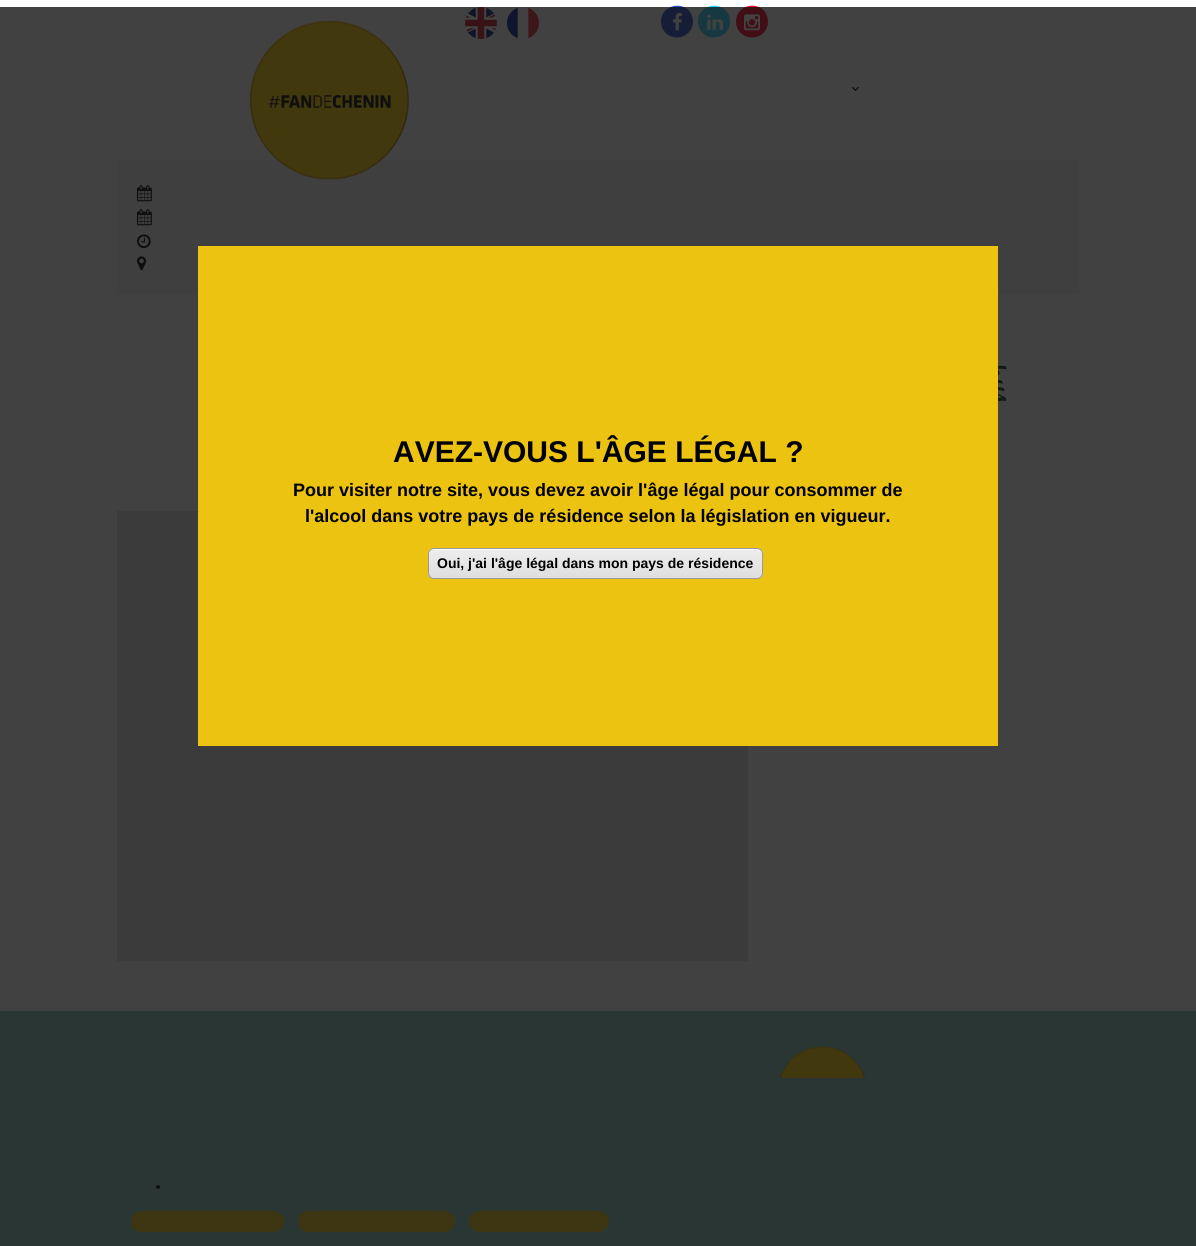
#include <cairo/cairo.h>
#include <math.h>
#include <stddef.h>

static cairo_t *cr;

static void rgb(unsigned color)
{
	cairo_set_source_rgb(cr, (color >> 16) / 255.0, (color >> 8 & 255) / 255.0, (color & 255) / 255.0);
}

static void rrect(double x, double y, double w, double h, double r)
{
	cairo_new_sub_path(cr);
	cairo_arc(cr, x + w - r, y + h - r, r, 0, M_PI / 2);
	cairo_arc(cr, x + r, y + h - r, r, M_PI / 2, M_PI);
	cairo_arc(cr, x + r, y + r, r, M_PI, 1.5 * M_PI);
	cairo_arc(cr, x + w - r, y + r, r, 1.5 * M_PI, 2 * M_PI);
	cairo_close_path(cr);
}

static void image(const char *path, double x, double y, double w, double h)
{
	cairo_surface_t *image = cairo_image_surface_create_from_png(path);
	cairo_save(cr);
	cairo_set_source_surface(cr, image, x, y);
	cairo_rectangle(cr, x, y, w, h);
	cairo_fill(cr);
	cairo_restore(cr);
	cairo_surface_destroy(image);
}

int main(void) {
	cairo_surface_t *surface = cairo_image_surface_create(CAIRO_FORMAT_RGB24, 1196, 1246);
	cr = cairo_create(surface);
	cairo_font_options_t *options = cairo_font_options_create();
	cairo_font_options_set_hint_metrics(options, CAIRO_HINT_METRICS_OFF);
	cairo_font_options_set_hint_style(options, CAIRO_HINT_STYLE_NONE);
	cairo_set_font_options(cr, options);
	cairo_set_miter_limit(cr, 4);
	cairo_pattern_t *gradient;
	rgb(0xffffff);
	cairo_paint(cr);
	rgb(0x2950cf);
	cairo_new_path(cr);
	cairo_move_to(cr, 691, 13.5);
	cairo_curve_to(cr, 692.5, 16.5, 693, 19.5, 693, 22.5);
	cairo_curve_to(cr, 692, 38.5, 671, 43, 663, 29.5);
	cairo_curve_to(cr, 661.5, 27, 661, 24, 661, 20.5);
	cairo_curve_to(cr, 662, 5, 683, 0, 691, 13.5);
	cairo_close_path(cr);
	cairo_fill(cr);
	image("img/1.png", 673, 13, 9, 18);
	rgb(0x24d2fe);
	cairo_new_path(cr);
	cairo_move_to(cr, 728, 13.5);
	cairo_curve_to(cr, 729.5, 16.5, 730, 19.5, 730, 22.5);
	cairo_curve_to(cr, 729, 38.5, 708, 43, 700, 29.5);
	cairo_curve_to(cr, 698.5, 27, 698, 24, 698, 20.5);
	cairo_curve_to(cr, 699, 5, 720, 0, 728, 13.5);
	cairo_close_path(cr);
	cairo_fill(cr);
	image("img/2.png", 707, 14, 16, 16);
	rgb(0xff002a);
	cairo_new_path(cr);
	cairo_move_to(cr, 766, 13.5);
	cairo_curve_to(cr, 767.5, 16.5, 768, 19.5, 768, 22.5);
	cairo_curve_to(cr, 767, 38.5, 746, 43, 738, 29.5);
	cairo_curve_to(cr, 736.5, 27, 736, 24, 736, 20.5);
	cairo_curve_to(cr, 737, 5, 758, 0, 766, 13.5);
	cairo_close_path(cr);
	cairo_fill(cr);
	image("img/3.png", 744, 14, 16, 17);
	rgb(0xf5f5f5);
	cairo_rectangle(cr, 117, 160, 962, 134);
	cairo_fill(cr);
	image("img/4.png", 250, 20, 159, 160);
	image("img/5.png", 465, 7, 32, 32);
	image("img/6.png", 507, 7, 32, 32);
	image("img/7.png", 852, 87, 7, 4);
	image("img/8.png", 137, 185, 15, 17);
	image("img/8.png", 137, 209, 15, 17);
	image("img/9.png", 137, 234, 14, 15);
	image("img/10.png", 137, 256, 10, 15);
	image("img/11.png", 998, 294, 9, 220);
	rgb(0xe5e3df);
	cairo_rectangle(cr, 117, 511, 631, 450);
	cairo_fill(cr);
	rgb(0x85c7bb);
	cairo_rectangle(cr, 0, 1011, 1196, 235);
	cairo_fill(cr);
	rgb(0x000000);
	cairo_arc(cr, 158, 1187, 2, 0, 2 * M_PI);
	cairo_fill(cr);
	rgb(0xecc311);
	rrect(131, 1211, 153, 21, 10.5);
	cairo_fill(cr);
	rrect(298, 1211, 157, 21, 10.5);
	cairo_fill(cr);
	rrect(469, 1211, 140, 21, 10.5);
	cairo_fill(cr);
	image("img/12.png", 779, 1046, 87, 32);
	cairo_set_source_rgba(cr, 0.071, 0.071, 0.071, 0.8);
	cairo_rectangle(cr, 0, 7, 1196, 1239);
	cairo_fill(cr);
	rgb(0xecc311);
	cairo_rectangle(cr, 198, 246, 800, 500);
	cairo_fill(cr);
	cairo_save(cr);
	rrect(428, 548, 335, 31, 6);
	cairo_clip(cr);
	gradient = cairo_pattern_create_linear(596, 549, 596, 578);
	cairo_pattern_add_color_stop_rgba(gradient, 0.05, 0.929, 0.929, 0.929, 1);
	cairo_pattern_add_color_stop_rgba(gradient, 1, 0.875, 0.875, 0.875, 1);
	cairo_set_source(cr, gradient);
	cairo_pattern_destroy(gradient);
	cairo_rectangle(cr, 428, 549, 335, 29);
	cairo_fill(cr);
	cairo_restore(cr);
	rgb(0xffffff);
	cairo_new_path(cr);
	cairo_move_to(cr, 434, 550);
	cairo_line_to(cr, 757, 550);
	cairo_curve_to(cr, 760, 550, 762, 552, 762, 555);
	cairo_curve_to(cr, 762, 552, 760, 549, 757, 549);
	cairo_line_to(cr, 434, 549);
	cairo_curve_to(cr, 431, 549, 429, 552, 429, 555);
	cairo_curve_to(cr, 429, 552, 431, 550, 434, 550);
	cairo_close_path(cr);
	cairo_fill(cr);
	rrect(428.5, 548.5, 334, 30, 5.5);
	rgb(0x999999);
	cairo_set_line_width(cr, 1);
	cairo_stroke(cr);
	cairo_select_font_face(cr, "Liberation Sans", CAIRO_FONT_SLANT_NORMAL, CAIRO_FONT_WEIGHT_BOLD);
	cairo_set_font_size(cr, 30);
	rgb(0x000000);
	cairo_move_to(cr, 393, 462);
	cairo_show_text(cr, "AVEZ-VOUS L'ÂGE LÉGAL ?");
	cairo_set_font_size(cr, 18);
	cairo_move_to(cr, 293, 496);
	cairo_show_text(cr, "Pour visiter notre site, vous devez avoir l'âge légal pour consommer de");
	cairo_move_to(cr, 305, 522);
	cairo_show_text(cr, "l'alcool dans votre pays de résidence selon la législation en vigueur.");
	cairo_set_font_size(cr, 14);
	cairo_move_to(cr, 437, 568);
	cairo_show_text(cr, "Oui, j'ai l'âge légal dans mon pays de résidence");
	cairo_surface_write_to_png(surface, "page.png");
	cairo_font_options_destroy(options);
	cairo_destroy(cr);
	cairo_surface_destroy(surface);
	return 0;
}
